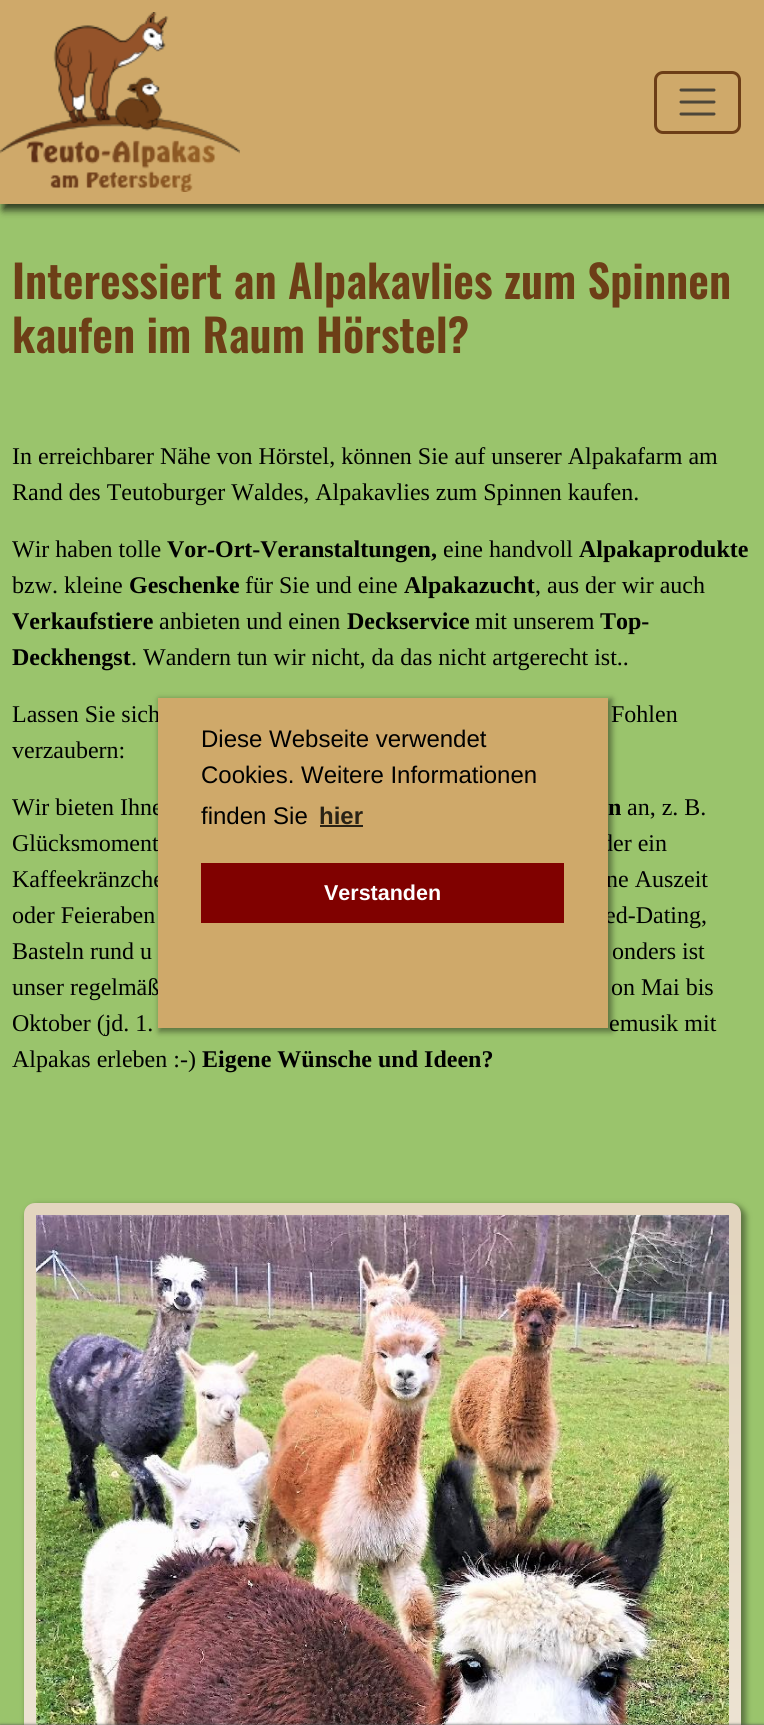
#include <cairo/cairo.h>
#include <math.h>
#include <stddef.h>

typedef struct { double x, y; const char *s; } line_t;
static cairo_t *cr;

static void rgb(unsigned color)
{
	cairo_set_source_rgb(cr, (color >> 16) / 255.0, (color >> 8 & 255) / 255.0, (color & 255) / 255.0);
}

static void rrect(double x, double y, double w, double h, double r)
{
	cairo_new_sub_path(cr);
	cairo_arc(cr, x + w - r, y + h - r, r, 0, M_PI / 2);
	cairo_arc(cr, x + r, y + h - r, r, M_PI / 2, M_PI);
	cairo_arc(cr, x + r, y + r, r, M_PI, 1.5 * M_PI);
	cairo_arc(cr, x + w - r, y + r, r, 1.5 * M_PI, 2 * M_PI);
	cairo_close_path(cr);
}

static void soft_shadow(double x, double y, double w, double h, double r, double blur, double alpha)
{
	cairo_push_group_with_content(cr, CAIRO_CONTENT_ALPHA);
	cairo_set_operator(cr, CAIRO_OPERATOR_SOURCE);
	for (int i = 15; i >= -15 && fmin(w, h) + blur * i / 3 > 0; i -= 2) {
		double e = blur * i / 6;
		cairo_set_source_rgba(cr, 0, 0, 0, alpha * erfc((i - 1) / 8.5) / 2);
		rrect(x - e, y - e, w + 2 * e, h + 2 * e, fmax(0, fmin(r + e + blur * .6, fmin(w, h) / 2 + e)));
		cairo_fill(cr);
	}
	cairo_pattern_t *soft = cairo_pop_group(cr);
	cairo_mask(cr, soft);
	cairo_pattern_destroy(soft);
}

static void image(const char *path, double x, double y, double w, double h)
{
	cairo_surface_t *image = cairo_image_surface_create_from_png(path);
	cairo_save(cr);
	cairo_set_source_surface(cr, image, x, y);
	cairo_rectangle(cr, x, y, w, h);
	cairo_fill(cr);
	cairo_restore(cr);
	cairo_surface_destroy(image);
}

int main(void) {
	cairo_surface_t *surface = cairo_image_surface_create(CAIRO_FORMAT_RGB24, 764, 1725);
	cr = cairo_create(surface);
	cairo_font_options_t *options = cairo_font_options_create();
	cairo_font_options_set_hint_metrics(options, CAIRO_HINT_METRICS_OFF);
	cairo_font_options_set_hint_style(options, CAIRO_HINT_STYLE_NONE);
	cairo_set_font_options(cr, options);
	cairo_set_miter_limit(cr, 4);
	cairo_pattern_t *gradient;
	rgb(0x9ac46c);
	cairo_paint(cr);
	rgb(0x000000);
	soft_shadow(3, 3, 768, 207, 0, 4, 0.7);
	rgb(0xcfa96a);
	cairo_rectangle(cr, 0, 0, 764, 204);
	cairo_fill(cr);
	image("img/1.png", 0, 12, 240, 180);
	rrect(655.5, 72.5, 84, 60, 7.5);
	rgb(0x6d3e17);
	cairo_set_line_width(cr, 3);
	cairo_stroke(cr);
	cairo_new_path(cr);
	cairo_move_to(cr, 681, 90);
	cairo_line_to(cr, 714, 90);
	cairo_move_to(cr, 681, 102);
	cairo_line_to(cr, 714, 102);
	cairo_move_to(cr, 681, 114);
	cairo_line_to(cr, 714, 114);
	rgb(0x4d4639);
	cairo_set_line_cap(cr, CAIRO_LINE_CAP_ROUND);
	cairo_stroke(cr);
	rgb(0x000000);
	soft_shadow(26, 1205, 720, 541, 12, 3, 0.4);
	gradient = cairo_pattern_create_linear(382, 1203, 383, 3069);
	cairo_pattern_add_color_stop_rgba(gradient, 0.02, 0.89, 0.835, 0.749, 1);
	cairo_pattern_add_color_stop_rgba(gradient, 0.21, 0.918, 0.875, 0.804, 1);
	cairo_pattern_add_color_stop_rgba(gradient, 0.78, 0.988, 0.98, 0.969, 1);
	cairo_set_source(cr, gradient);
	cairo_pattern_destroy(gradient);
	rrect(24, 1203, 717, 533, 11);
	cairo_fill(cr);
	image("img/2.png", 36, 1215, 693, 510);
	rgb(0x000000);
	soft_shadow(159, 699, 453, 333, 0, 3, 0.4);
	rgb(0x545454);
	soft_shadow(0, 1725, 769, 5, 0, 1.5, 1);
	cairo_select_font_face(cr, "Oswald SemiBold", CAIRO_FONT_SLANT_NORMAL, CAIRO_FONT_WEIGHT_NORMAL);
	cairo_set_font_size(cr, 45);
	rgb(0x6d3e17);
	cairo_move_to(cr, 12, 299);
	cairo_show_text(cr, "Interessiert an Alpakavlies zum Spinnen");
	cairo_move_to(cr, 12, 353);
	cairo_show_text(cr, "kaufen im Raum Hörstel?");
	cairo_select_font_face(cr, "Liberation Serif", CAIRO_FONT_SLANT_NORMAL, CAIRO_FONT_WEIGHT_NORMAL);
	cairo_set_font_size(cr, 24);
	rgb(0x000000);
	{
		static const line_t items[] = {
			{12, 464, "In erreichbarer Nähe von Hörstel, können Sie auf unserer Alpakafarm am"},
			{12, 500, "Rand des Teutoburger Waldes, Alpakavlies zum Spinnen kaufen."},
			{12, 557, "Wir haben tolle"},
		};
		for (size_t i = 0; i < sizeof items / sizeof *items; i++) {
			cairo_move_to(cr, items[i].x, items[i].y);
			cairo_show_text(cr, items[i].s);
		}
	}
	cairo_select_font_face(cr, "Liberation Serif", CAIRO_FONT_SLANT_NORMAL, CAIRO_FONT_WEIGHT_BOLD);
	cairo_move_to(cr, 167, 557);
	cairo_show_text(cr, "Vor-Ort-Veranstaltungen,");
	cairo_select_font_face(cr, "Liberation Serif", CAIRO_FONT_SLANT_NORMAL, CAIRO_FONT_WEIGHT_NORMAL);
	cairo_move_to(cr, 443, 557);
	cairo_show_text(cr, "eine handvoll");
	cairo_select_font_face(cr, "Liberation Serif", CAIRO_FONT_SLANT_NORMAL, CAIRO_FONT_WEIGHT_BOLD);
	cairo_move_to(cr, 579, 557);
	cairo_show_text(cr, "Alpakaprodukte");
	cairo_select_font_face(cr, "Liberation Serif", CAIRO_FONT_SLANT_NORMAL, CAIRO_FONT_WEIGHT_NORMAL);
	cairo_move_to(cr, 12, 593);
	cairo_show_text(cr, "bzw. kleine");
	cairo_select_font_face(cr, "Liberation Serif", CAIRO_FONT_SLANT_NORMAL, CAIRO_FONT_WEIGHT_BOLD);
	cairo_move_to(cr, 129, 593);
	cairo_show_text(cr, "Geschenke");
	cairo_select_font_face(cr, "Liberation Serif", CAIRO_FONT_SLANT_NORMAL, CAIRO_FONT_WEIGHT_NORMAL);
	cairo_move_to(cr, 245, 593);
	cairo_show_text(cr, "für Sie und eine");
	cairo_select_font_face(cr, "Liberation Serif", CAIRO_FONT_SLANT_NORMAL, CAIRO_FONT_WEIGHT_BOLD);
	cairo_move_to(cr, 404, 593);
	cairo_show_text(cr, "Alpakazucht");
	cairo_select_font_face(cr, "Liberation Serif", CAIRO_FONT_SLANT_NORMAL, CAIRO_FONT_WEIGHT_NORMAL);
	cairo_move_to(cr, 535, 593);
	cairo_show_text(cr, ", aus der wir auch");
	cairo_select_font_face(cr, "Liberation Serif", CAIRO_FONT_SLANT_NORMAL, CAIRO_FONT_WEIGHT_BOLD);
	cairo_move_to(cr, 12, 629);
	cairo_show_text(cr, "Verkaufstiere");
	cairo_select_font_face(cr, "Liberation Serif", CAIRO_FONT_SLANT_NORMAL, CAIRO_FONT_WEIGHT_NORMAL);
	cairo_move_to(cr, 159, 629);
	cairo_show_text(cr, "anbieten und einen");
	cairo_select_font_face(cr, "Liberation Serif", CAIRO_FONT_SLANT_NORMAL, CAIRO_FONT_WEIGHT_BOLD);
	cairo_move_to(cr, 347, 629);
	cairo_show_text(cr, "Deckservice");
	cairo_select_font_face(cr, "Liberation Serif", CAIRO_FONT_SLANT_NORMAL, CAIRO_FONT_WEIGHT_NORMAL);
	cairo_move_to(cr, 475, 629);
	cairo_show_text(cr, "mit unserem");
	cairo_select_font_face(cr, "Liberation Serif", CAIRO_FONT_SLANT_NORMAL, CAIRO_FONT_WEIGHT_BOLD);
	cairo_move_to(cr, 600, 629);
	cairo_show_text(cr, "Top-");
	cairo_move_to(cr, 12, 665);
	cairo_show_text(cr, "Deckhengst");
	cairo_select_font_face(cr, "Liberation Serif", CAIRO_FONT_SLANT_NORMAL, CAIRO_FONT_WEIGHT_NORMAL);
	{
		static const line_t items[] = {
			{131, 665, ". Wandern tun wir nicht, da das nicht artgerecht ist.."},
			{12, 722, "Lassen Sie sich"},
			{611, 722, "Fohlen"},
			{12, 758, "verzaubern:"},
			{12, 815, "Wir bieten Ihne"},
		};
		for (size_t i = 0; i < sizeof items / sizeof *items; i++) {
			cairo_move_to(cr, items[i].x, items[i].y);
			cairo_show_text(cr, items[i].s);
		}
	}
	cairo_select_font_face(cr, "Liberation Serif", CAIRO_FONT_SLANT_NORMAL, CAIRO_FONT_WEIGHT_BOLD);
	cairo_move_to(cr, 608, 815);
	cairo_show_text(cr, "n");
	cairo_select_font_face(cr, "Liberation Serif", CAIRO_FONT_SLANT_NORMAL, CAIRO_FONT_WEIGHT_NORMAL);
	{
		static const line_t items[] = {
			{627, 815, "an, z. B."},
			{12, 851, "Glücksmoment"},
			{601, 851, "der ein"},
			{12, 887, "Kaffeekränzche"},
			{606, 887, "ne Auszeit"},
			{12, 923, "oder Feieraben"},
			{605, 923, "ed-Dating,"},
			{12, 959, "Basteln rund u"},
			{612, 959, "onders ist"},
			{12, 995, "unser regelmäß"},
			{611, 995, "on Mai bis"},
			{12, 1031, "Oktober (jd. 1."},
			{609, 1031, "emusik mit"},
			{12, 1067, "Alpakas erleben :-)"},
		};
		for (size_t i = 0; i < sizeof items / sizeof *items; i++) {
			cairo_move_to(cr, items[i].x, items[i].y);
			cairo_show_text(cr, items[i].s);
		}
	}
	cairo_select_font_face(cr, "Liberation Serif", CAIRO_FONT_SLANT_NORMAL, CAIRO_FONT_WEIGHT_BOLD);
	cairo_move_to(cr, 202, 1067);
	cairo_show_text(cr, "Eigene Wünsche und Ideen?");
	rgb(0xcfa96a);
	cairo_rectangle(cr, 158, 698, 450, 330);
	cairo_fill(cr);
	cairo_select_font_face(cr, "Liberation Sans", CAIRO_FONT_SLANT_NORMAL, CAIRO_FONT_WEIGHT_NORMAL);
	rgb(0x000000);
	{
		static const line_t items[] = {
			{201, 747, "Diese Webseite verwendet"},
			{201, 783, "Cookies. Weitere Informationen"},
			{201, 824, "finden Sie"},
		};
		for (size_t i = 0; i < sizeof items / sizeof *items; i++) {
			cairo_move_to(cr, items[i].x, items[i].y);
			cairo_show_text(cr, items[i].s);
		}
	}
	cairo_select_font_face(cr, "Liberation Sans", CAIRO_FONT_SLANT_NORMAL, CAIRO_FONT_WEIGHT_BOLD);
	rgb(0x292215);
	cairo_move_to(cr, 319, 824);
	cairo_show_text(cr, "hier");
	cairo_rectangle(cr, 320, 825, 43, 2);
	cairo_fill(cr);
	rgb(0x800100);
	cairo_rectangle(cr, 201, 863, 363, 60);
	cairo_fill(cr);
	cairo_set_font_size(cr, 21.5);
	rgb(0xffffff);
	cairo_move_to(cr, 324, 900);
	cairo_show_text(cr, "Verstanden");
	cairo_surface_write_to_png(surface, "page.png");
	cairo_font_options_destroy(options);
	cairo_destroy(cr);
	cairo_surface_destroy(surface);
	return 0;
}
